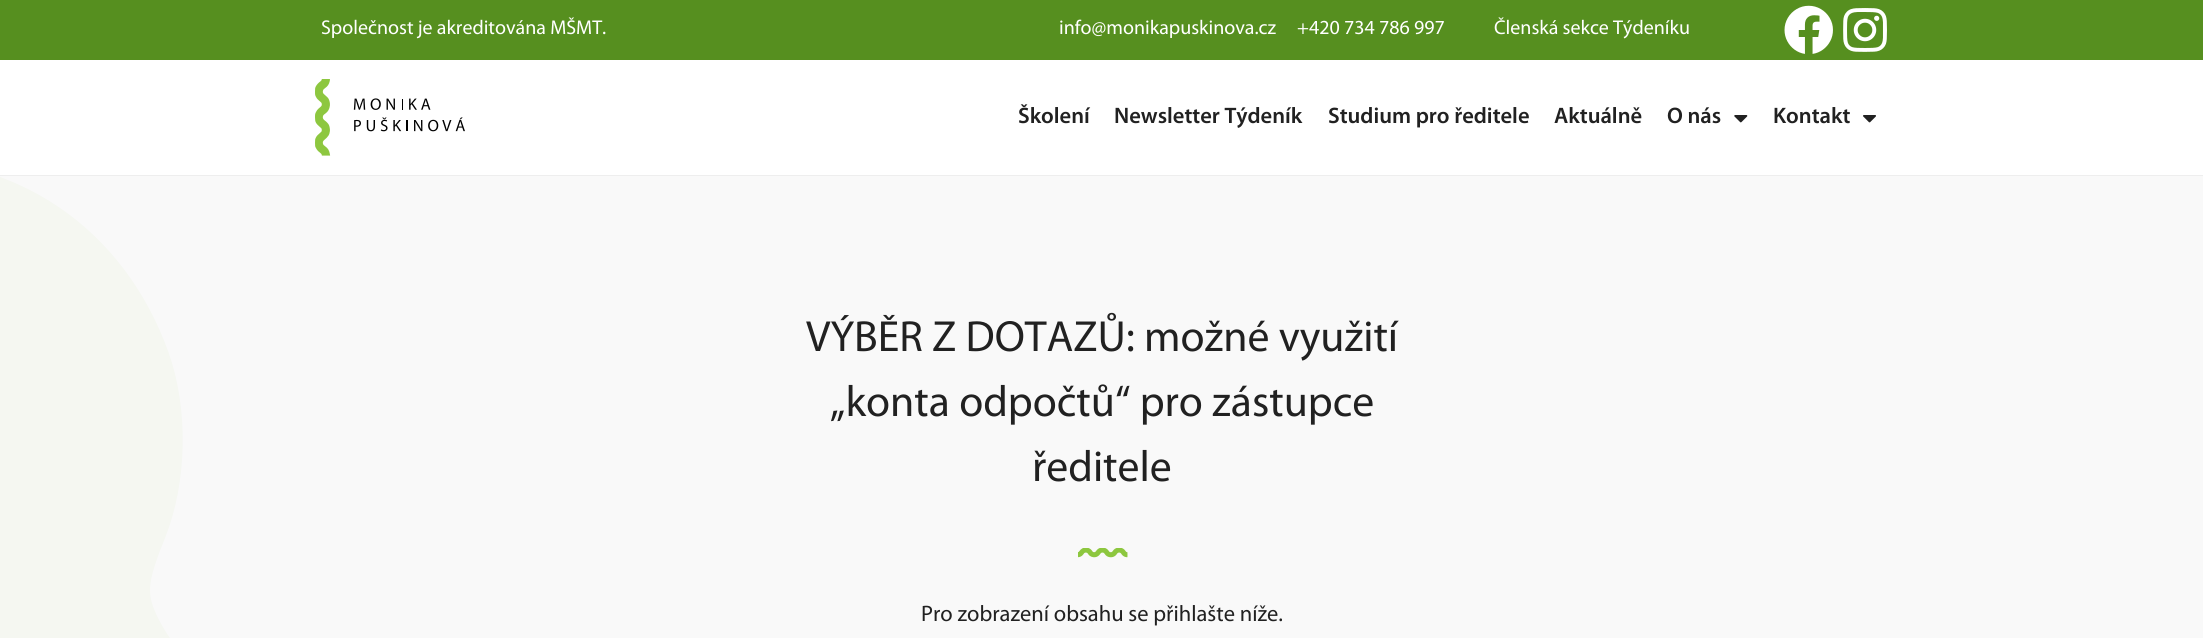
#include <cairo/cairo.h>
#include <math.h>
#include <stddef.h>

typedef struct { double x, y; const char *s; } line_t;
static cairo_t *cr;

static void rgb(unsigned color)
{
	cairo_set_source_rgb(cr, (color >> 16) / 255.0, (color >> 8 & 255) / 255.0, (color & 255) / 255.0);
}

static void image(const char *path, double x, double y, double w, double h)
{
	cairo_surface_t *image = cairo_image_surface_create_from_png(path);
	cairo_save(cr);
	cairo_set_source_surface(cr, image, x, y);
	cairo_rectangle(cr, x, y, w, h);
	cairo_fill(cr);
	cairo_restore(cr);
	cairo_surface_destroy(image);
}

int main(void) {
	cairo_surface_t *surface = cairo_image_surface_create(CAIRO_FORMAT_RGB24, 2203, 638);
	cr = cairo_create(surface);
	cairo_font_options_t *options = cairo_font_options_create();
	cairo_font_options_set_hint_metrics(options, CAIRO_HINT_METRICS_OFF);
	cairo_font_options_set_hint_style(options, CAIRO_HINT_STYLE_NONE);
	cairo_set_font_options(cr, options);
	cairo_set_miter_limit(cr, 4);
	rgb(0xffffff);
	cairo_paint(cr);
	rgb(0x568f1f);
	cairo_rectangle(cr, 0, 0, 2203, 60);
	cairo_fill(cr);
	image("img/1.png", 1784, 5, 49, 49);
	image("img/2.png", 1843, 8, 44, 44);
	rgb(0xeeeeee);
	cairo_rectangle(cr, 0, 175, 2203, 1);
	cairo_fill(cr);
	image("img/3.png", 315, 79, 150, 77);
	image("img/4.png", 1734, 115, 14, 8);
	image("img/5.png", 1863, 115, 13, 8);
	rgb(0xf9f9f9);
	cairo_rectangle(cr, 0, 176, 2203, 462);
	cairo_fill(cr);
	image("img/6.png", 0, 177, 183, 461);
	image("img/7.png", 1078, 548, 50, 10);
	cairo_select_font_face(cr, "Myriad", CAIRO_FONT_SLANT_NORMAL, CAIRO_FONT_WEIGHT_NORMAL);
	cairo_set_font_size(cr, 20);
	rgb(0xffffff);
	{
		static const line_t items[] = {
			{321, 34, "Společnost je akreditována MŠMT."},
			{1059, 34, "info@monikapuskinova.cz"},
			{1297, 34, "+420 734 786 997"},
			{1494, 34, "Členská sekce Týdeníku"},
		};
		for (size_t i = 0; i < sizeof items / sizeof *items; i++) {
			cairo_move_to(cr, items[i].x, items[i].y);
			cairo_show_text(cr, items[i].s);
		}
	}
	cairo_select_font_face(cr, "Myriad SemiBold", CAIRO_FONT_SLANT_NORMAL, CAIRO_FONT_WEIGHT_NORMAL);
	cairo_set_font_size(cr, 22.5);
	rgb(0x212121);
	{
		static const line_t items[] = {
			{1018, 123, "Školení"},
			{1114, 123, "Newsletter Týdeník"},
			{1328, 123, "Studium pro ředitele"},
			{1554, 123, "Aktuálně"},
			{1667, 123, "O nás"},
			{1773, 123, "Kontakt"},
		};
		for (size_t i = 0; i < sizeof items / sizeof *items; i++) {
			cairo_move_to(cr, items[i].x, items[i].y);
			cairo_show_text(cr, items[i].s);
		}
	}
	cairo_select_font_face(cr, "Myriad", CAIRO_FONT_SLANT_NORMAL, CAIRO_FONT_WEIGHT_NORMAL);
	cairo_set_font_size(cr, 43.75);
	{
		static const line_t items[] = {
			{806, 351, "VÝBĚR Z DOTAZŮ: možné využití"},
			{830, 416, "„konta odpočtů“ pro zástupce"},
			{1032, 481, "ředitele"},
		};
		for (size_t i = 0; i < sizeof items / sizeof *items; i++) {
			cairo_move_to(cr, items[i].x, items[i].y);
			cairo_show_text(cr, items[i].s);
		}
	}
	cairo_set_font_size(cr, 22.5);
	cairo_move_to(cr, 921, 621);
	cairo_show_text(cr, "Pro zobrazení obsahu se přihlašte níže.");
	cairo_surface_write_to_png(surface, "page.png");
	cairo_font_options_destroy(options);
	cairo_destroy(cr);
	cairo_surface_destroy(surface);
	return 0;
}
